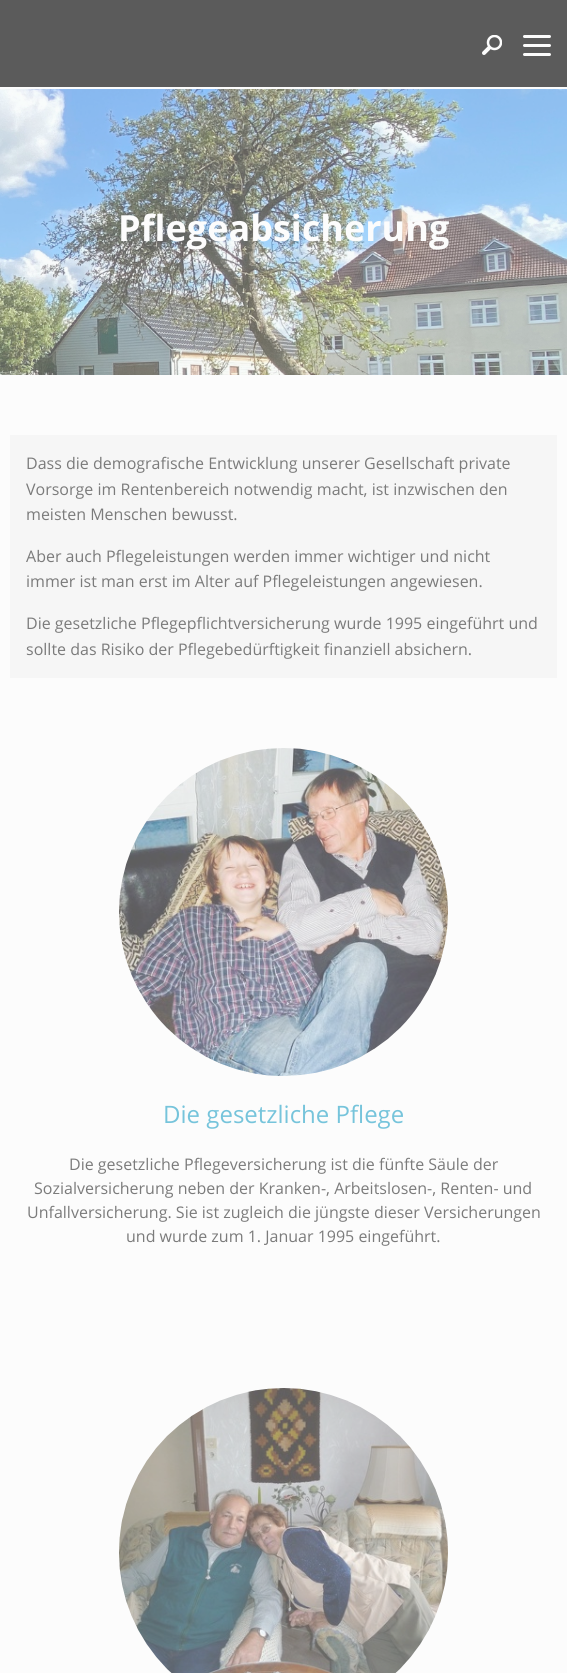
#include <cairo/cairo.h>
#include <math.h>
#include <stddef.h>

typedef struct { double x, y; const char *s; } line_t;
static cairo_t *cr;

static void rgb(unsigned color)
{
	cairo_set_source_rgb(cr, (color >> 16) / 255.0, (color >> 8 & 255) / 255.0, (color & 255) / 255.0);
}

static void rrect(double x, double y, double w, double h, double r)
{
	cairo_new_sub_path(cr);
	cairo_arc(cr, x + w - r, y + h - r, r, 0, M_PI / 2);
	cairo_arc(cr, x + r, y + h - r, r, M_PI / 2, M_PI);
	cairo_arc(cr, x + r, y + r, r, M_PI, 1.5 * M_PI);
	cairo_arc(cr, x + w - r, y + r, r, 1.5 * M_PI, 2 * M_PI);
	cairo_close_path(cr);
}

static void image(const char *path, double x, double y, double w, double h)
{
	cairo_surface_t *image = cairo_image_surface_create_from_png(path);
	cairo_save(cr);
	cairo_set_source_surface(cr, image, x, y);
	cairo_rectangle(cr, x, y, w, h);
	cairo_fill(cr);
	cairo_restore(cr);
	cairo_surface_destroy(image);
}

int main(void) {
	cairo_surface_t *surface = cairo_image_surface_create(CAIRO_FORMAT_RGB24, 567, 1673);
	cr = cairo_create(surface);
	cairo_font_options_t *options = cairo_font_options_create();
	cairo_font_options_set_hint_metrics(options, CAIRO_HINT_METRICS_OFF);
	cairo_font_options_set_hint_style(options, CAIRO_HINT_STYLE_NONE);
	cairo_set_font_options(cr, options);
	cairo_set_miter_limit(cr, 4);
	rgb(0xfcfcfc);
	cairo_paint(cr);
	rgb(0x5b5b5b);
	cairo_rectangle(cr, 0, 0, 567, 87);
	cairo_fill(cr);
	cairo_new_path(cr);
	cairo_move_to(cr, 489, 48);
	cairo_line_to(cr, 484, 53);
	rgb(0xfcfcfc);
	cairo_set_line_width(cr, 4);
	cairo_set_line_cap(cr, CAIRO_LINE_CAP_ROUND);
	cairo_stroke(cr);
	cairo_save(cr);
	cairo_rectangle(cr, 482, 35, 20, 20);
	cairo_clip(cr);
	cairo_arc(cr, 494.5, 42.5, 6.5, 0, 2 * M_PI);
	cairo_set_line_width(cr, 2.5);
	cairo_set_line_cap(cr, CAIRO_LINE_CAP_BUTT);
	cairo_stroke(cr);
	cairo_restore(cr);
	rrect(523, 44, 28, 3, 1.5);
	cairo_fill(cr);
	rrect(523, 35, 28, 3, 1.5);
	cairo_fill(cr);
	rrect(523, 53, 28, 3, 1.5);
	cairo_fill(cr);
	image("img/1.png", 0, 89, 567, 286);
	rgb(0xf6f6f6);
	cairo_rectangle(cr, 10, 435, 547, 243);
	cairo_fill(cr);
	image("img/2.png", 119, 748, 329, 328);
	image("img/3.png", 119, 1388, 329, 285);
	cairo_select_font_face(cr, "Open Sans", CAIRO_FONT_SLANT_NORMAL, CAIRO_FONT_WEIGHT_BOLD);
	cairo_set_font_size(cr, 36);
	rgb(0xfcfcfc);
	cairo_move_to(cr, 118, 241);
	cairo_show_text(cr, "Pflegeabsicherung");
	cairo_select_font_face(cr, "Open Sans", CAIRO_FONT_SLANT_NORMAL, CAIRO_FONT_WEIGHT_NORMAL);
	cairo_set_font_size(cr, 16);
	rgb(0x7b7b7b);
	{
		static const line_t items[] = {
			{26, 469, "Dass die demografische Entwicklung unserer Gesellschaft private"},
			{26, 495, "Vorsorge im Rentenbereich notwendig macht, ist inzwischen den"},
			{26, 520, "meisten Menschen bewusst."},
			{26, 562, "Aber auch Pflegeleistungen werden immer wichtiger und nicht"},
			{26, 587, "immer ist man erst im Alter auf Pflegeleistungen angewiesen."},
			{26, 629, "Die gesetzliche Pflegepflichtversicherung wurde 1995 eingeführt und"},
			{26, 655, "sollte das Risiko der Pflegebedürftigkeit finanziell absichern."},
		};
		for (size_t i = 0; i < sizeof items / sizeof *items; i++) {
			cairo_move_to(cr, items[i].x, items[i].y);
			cairo_show_text(cr, items[i].s);
		}
	}
	cairo_set_font_size(cr, 24);
	rgb(0x76c4db);
	cairo_move_to(cr, 163, 1123);
	cairo_show_text(cr, "Die gesetzliche Pflege");
	cairo_set_font_size(cr, 16);
	rgb(0x7b7b7b);
	{
		static const line_t items[] = {
			{69, 1170, "Die gesetzliche Pflegeversicherung ist die fünfte Säule der"},
			{34, 1194, "Sozialversicherung neben der Kranken-, Arbeitslosen-, Renten- und"},
			{27, 1218, "Unfallversicherung. Sie ist zugleich die jüngste dieser Versicherungen"},
			{126, 1242, "und wurde zum 1. Januar 1995 eingeführt."},
		};
		for (size_t i = 0; i < sizeof items / sizeof *items; i++) {
			cairo_move_to(cr, items[i].x, items[i].y);
			cairo_show_text(cr, items[i].s);
		}
	}
	cairo_surface_write_to_png(surface, "page.png");
	cairo_font_options_destroy(options);
	cairo_destroy(cr);
	cairo_surface_destroy(surface);
	return 0;
}
